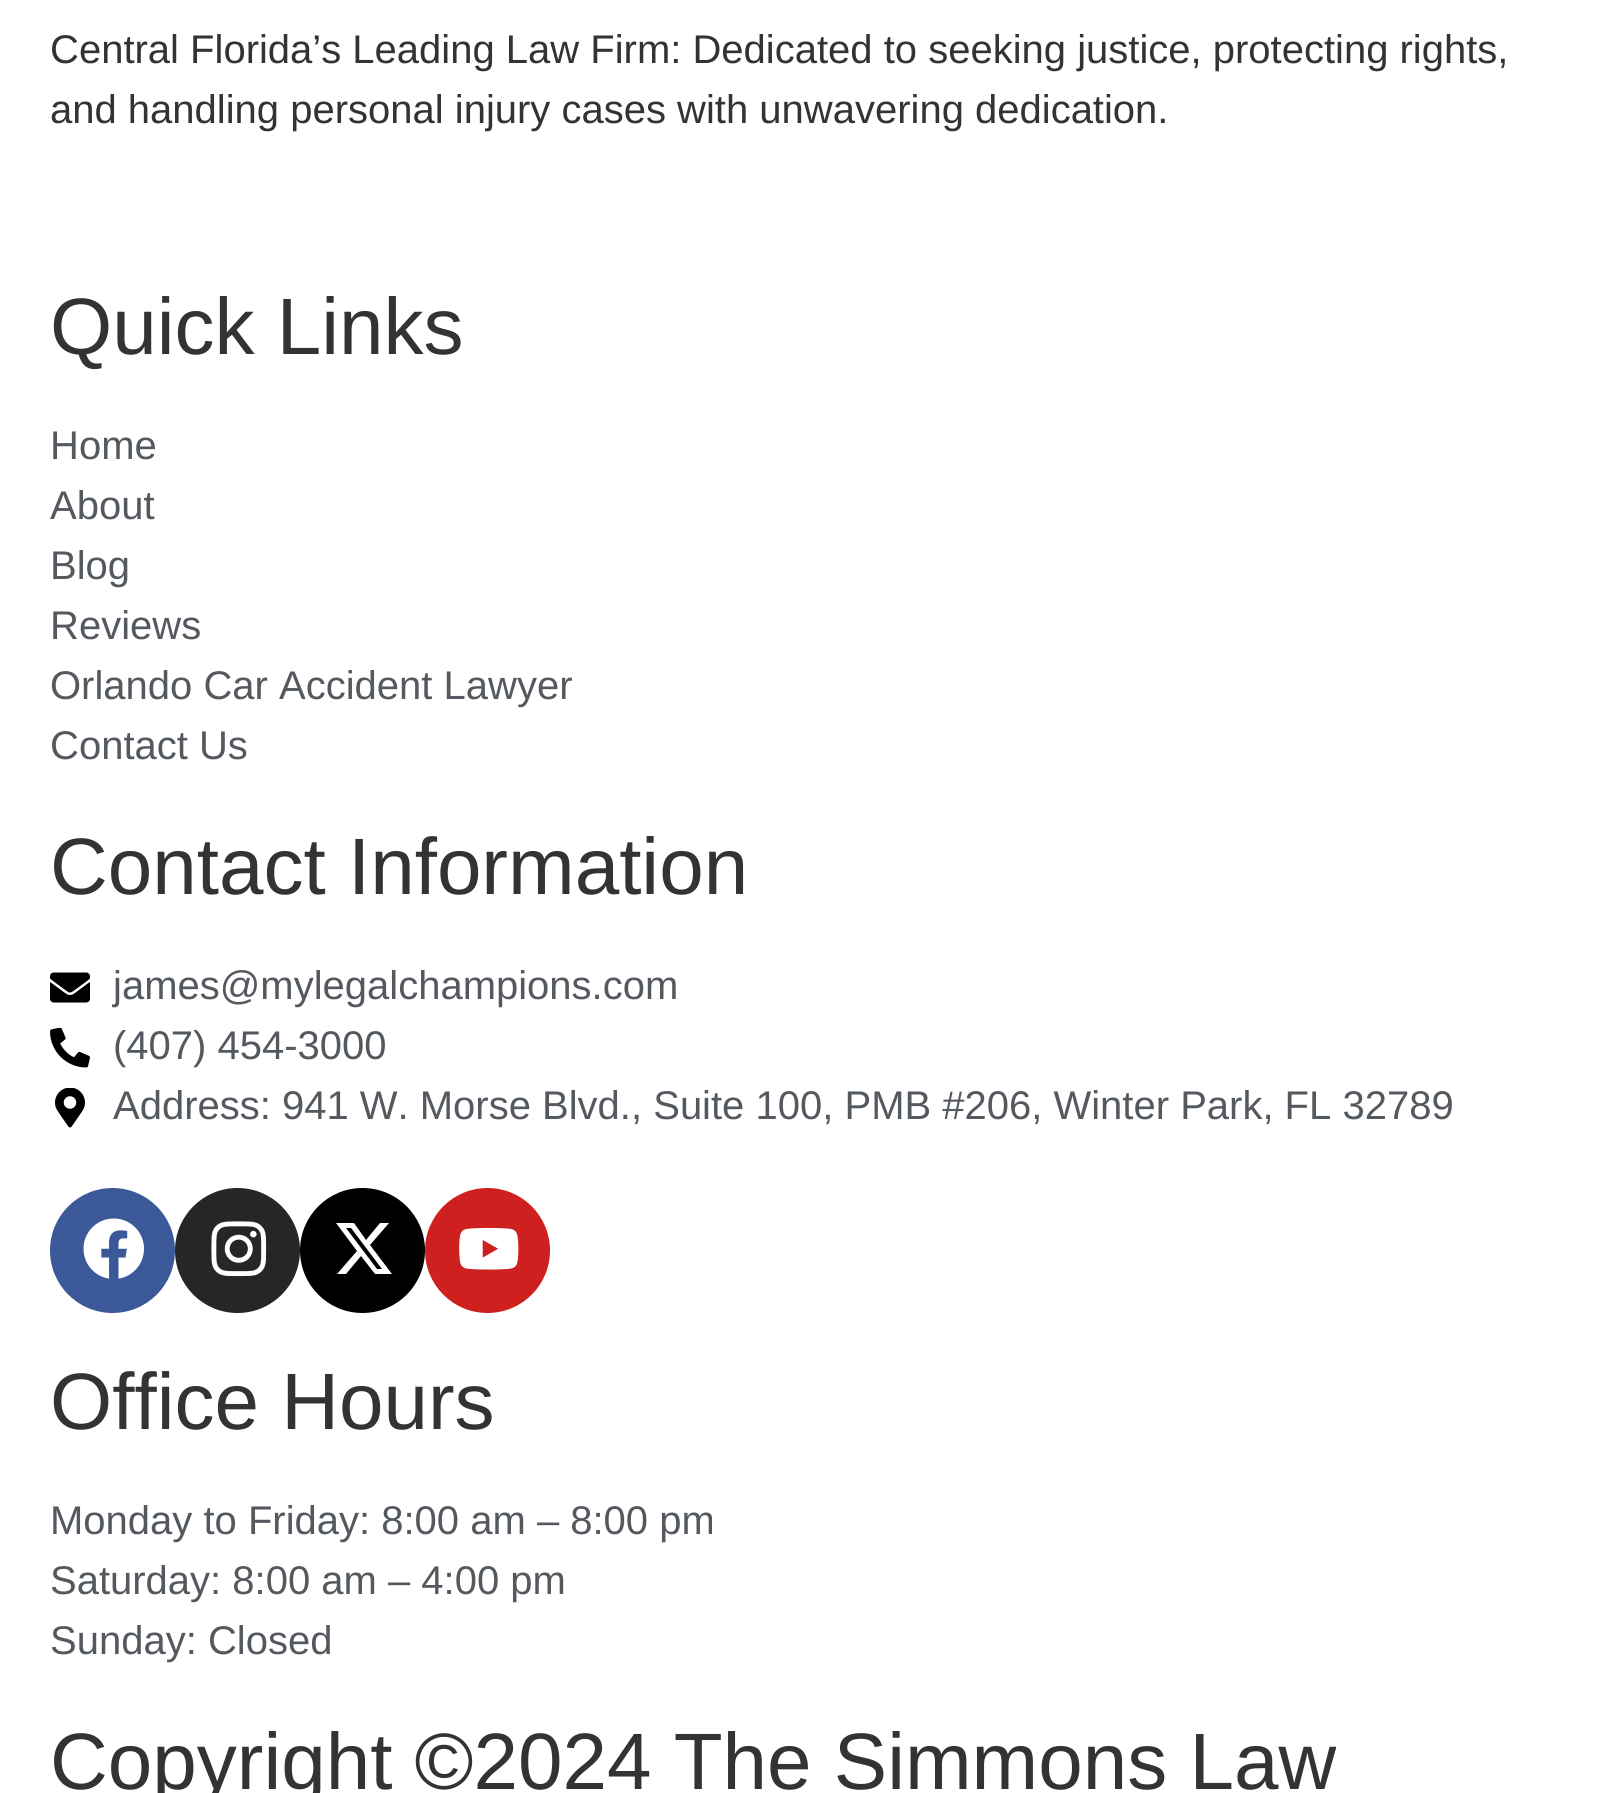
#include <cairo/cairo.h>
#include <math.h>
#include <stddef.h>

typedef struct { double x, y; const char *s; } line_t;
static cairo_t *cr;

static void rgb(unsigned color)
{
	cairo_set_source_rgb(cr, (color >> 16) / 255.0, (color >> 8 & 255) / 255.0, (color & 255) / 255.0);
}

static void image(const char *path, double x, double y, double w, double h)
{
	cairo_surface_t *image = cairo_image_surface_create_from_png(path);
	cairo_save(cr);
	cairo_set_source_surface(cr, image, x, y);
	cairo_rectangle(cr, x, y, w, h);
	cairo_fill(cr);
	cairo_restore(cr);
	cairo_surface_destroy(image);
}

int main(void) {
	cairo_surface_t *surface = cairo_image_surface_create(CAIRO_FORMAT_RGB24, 1622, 1793);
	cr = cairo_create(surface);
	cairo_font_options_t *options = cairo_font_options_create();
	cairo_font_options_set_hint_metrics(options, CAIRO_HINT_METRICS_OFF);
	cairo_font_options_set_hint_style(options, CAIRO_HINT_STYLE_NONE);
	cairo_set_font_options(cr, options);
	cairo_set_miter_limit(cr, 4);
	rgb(0xffffff);
	cairo_paint(cr);
	image("img/1.png", 50, 972, 40, 31);
	image("img/2.png", 50, 1028, 40, 40);
	image("img/3.png", 55, 1088, 30, 40);
	rgb(0x3b5998);
	cairo_arc(cr, 112.5, 1250.5, 62.5, 0, 2 * M_PI);
	cairo_fill(cr);
	image("img/4.png", 83, 1218, 61, 61);
	rgb(0x262626);
	cairo_arc(cr, 237.5, 1250.5, 62.5, 0, 2 * M_PI);
	cairo_fill(cr);
	image("img/5.png", 211, 1221, 56, 56);
	rgb(0x000000);
	cairo_arc(cr, 362.5, 1250.5, 62.5, 0, 2 * M_PI);
	cairo_fill(cr);
	rgb(0xffffff);
	cairo_new_path(cr);
	cairo_move_to(cr, 380, 1223);
	cairo_line_to(cr, 389, 1223);
	cairo_line_to(cr, 370, 1245);
	cairo_line_to(cr, 392, 1274);
	cairo_line_to(cr, 375, 1274);
	cairo_line_to(cr, 361, 1256);
	cairo_line_to(cr, 346, 1274);
	cairo_line_to(cr, 337, 1274);
	cairo_line_to(cr, 357, 1251);
	cairo_line_to(cr, 336, 1223);
	cairo_line_to(cr, 354, 1223);
	cairo_line_to(cr, 366, 1240);
	cairo_close_path(cr);
	cairo_move_to(cr, 377, 1269);
	cairo_line_to(cr, 382, 1269);
	cairo_line_to(cr, 351, 1228);
	cairo_line_to(cr, 346, 1228);
	cairo_close_path(cr);
	cairo_fill(cr);
	rgb(0xcd201f);
	cairo_arc(cr, 487.5, 1250.5, 62.5, 0, 2 * M_PI);
	cairo_fill(cr);
	image("img/6.png", 459, 1227, 60, 43);
	cairo_select_font_face(cr, "Liberation Sans", CAIRO_FONT_SLANT_NORMAL, CAIRO_FONT_WEIGHT_NORMAL);
	cairo_set_font_size(cr, 40);
	rgb(0x333333);
	cairo_move_to(cr, 50, 63);
	cairo_show_text(cr, "Central Florida’s Leading Law Firm: Dedicated to seeking justice, protecting rights,");
	cairo_move_to(cr, 50, 123);
	cairo_show_text(cr, "and handling personal injury cases with unwavering dedication.");
	cairo_set_font_size(cr, 80);
	cairo_move_to(cr, 50, 354);
	cairo_show_text(cr, "Quick Links");
	cairo_set_font_size(cr, 40);
	rgb(0x54595f);
	{
		static const line_t items[] = {
			{50, 459, "Home"},
			{50, 519, "About"},
			{50, 579, "Blog"},
			{50, 639, "Reviews"},
			{50, 699, "Orlando Car Accident Lawyer"},
			{50, 759, "Contact Us"},
		};
		for (size_t i = 0; i < sizeof items / sizeof *items; i++) {
			cairo_move_to(cr, items[i].x, items[i].y);
			cairo_show_text(cr, items[i].s);
		}
	}
	cairo_set_font_size(cr, 80);
	rgb(0x333333);
	cairo_move_to(cr, 50, 894);
	cairo_show_text(cr, "Contact Information");
	cairo_set_font_size(cr, 40);
	rgb(0x54595f);
	{
		static const line_t items[] = {
			{113, 999, "james@mylegalchampions.com"},
			{113, 1059, "(407) 454-3000"},
			{113, 1119, "Address: 941 W. Morse Blvd., Suite 100, PMB #206, Winter Park, FL 32789"},
		};
		for (size_t i = 0; i < sizeof items / sizeof *items; i++) {
			cairo_move_to(cr, items[i].x, items[i].y);
			cairo_show_text(cr, items[i].s);
		}
	}
	cairo_set_font_size(cr, 80);
	rgb(0x333333);
	cairo_move_to(cr, 50, 1429);
	cairo_show_text(cr, "Office Hours");
	cairo_set_font_size(cr, 40);
	rgb(0x54595f);
	{
		static const line_t items[] = {
			{50, 1534, "Monday to Friday: 8:00 am – 8:00 pm"},
			{50, 1594, "Saturday: 8:00 am – 4:00 pm"},
			{50, 1654, "Sunday: Closed"},
		};
		for (size_t i = 0; i < sizeof items / sizeof *items; i++) {
			cairo_move_to(cr, items[i].x, items[i].y);
			cairo_show_text(cr, items[i].s);
		}
	}
	cairo_set_font_size(cr, 80);
	rgb(0x333333);
	cairo_move_to(cr, 50, 1789);
	cairo_show_text(cr, "Copyright ©2024 The Simmons Law");
	cairo_surface_write_to_png(surface, "page.png");
	cairo_font_options_destroy(options);
	cairo_destroy(cr);
	cairo_surface_destroy(surface);
	return 0;
}
